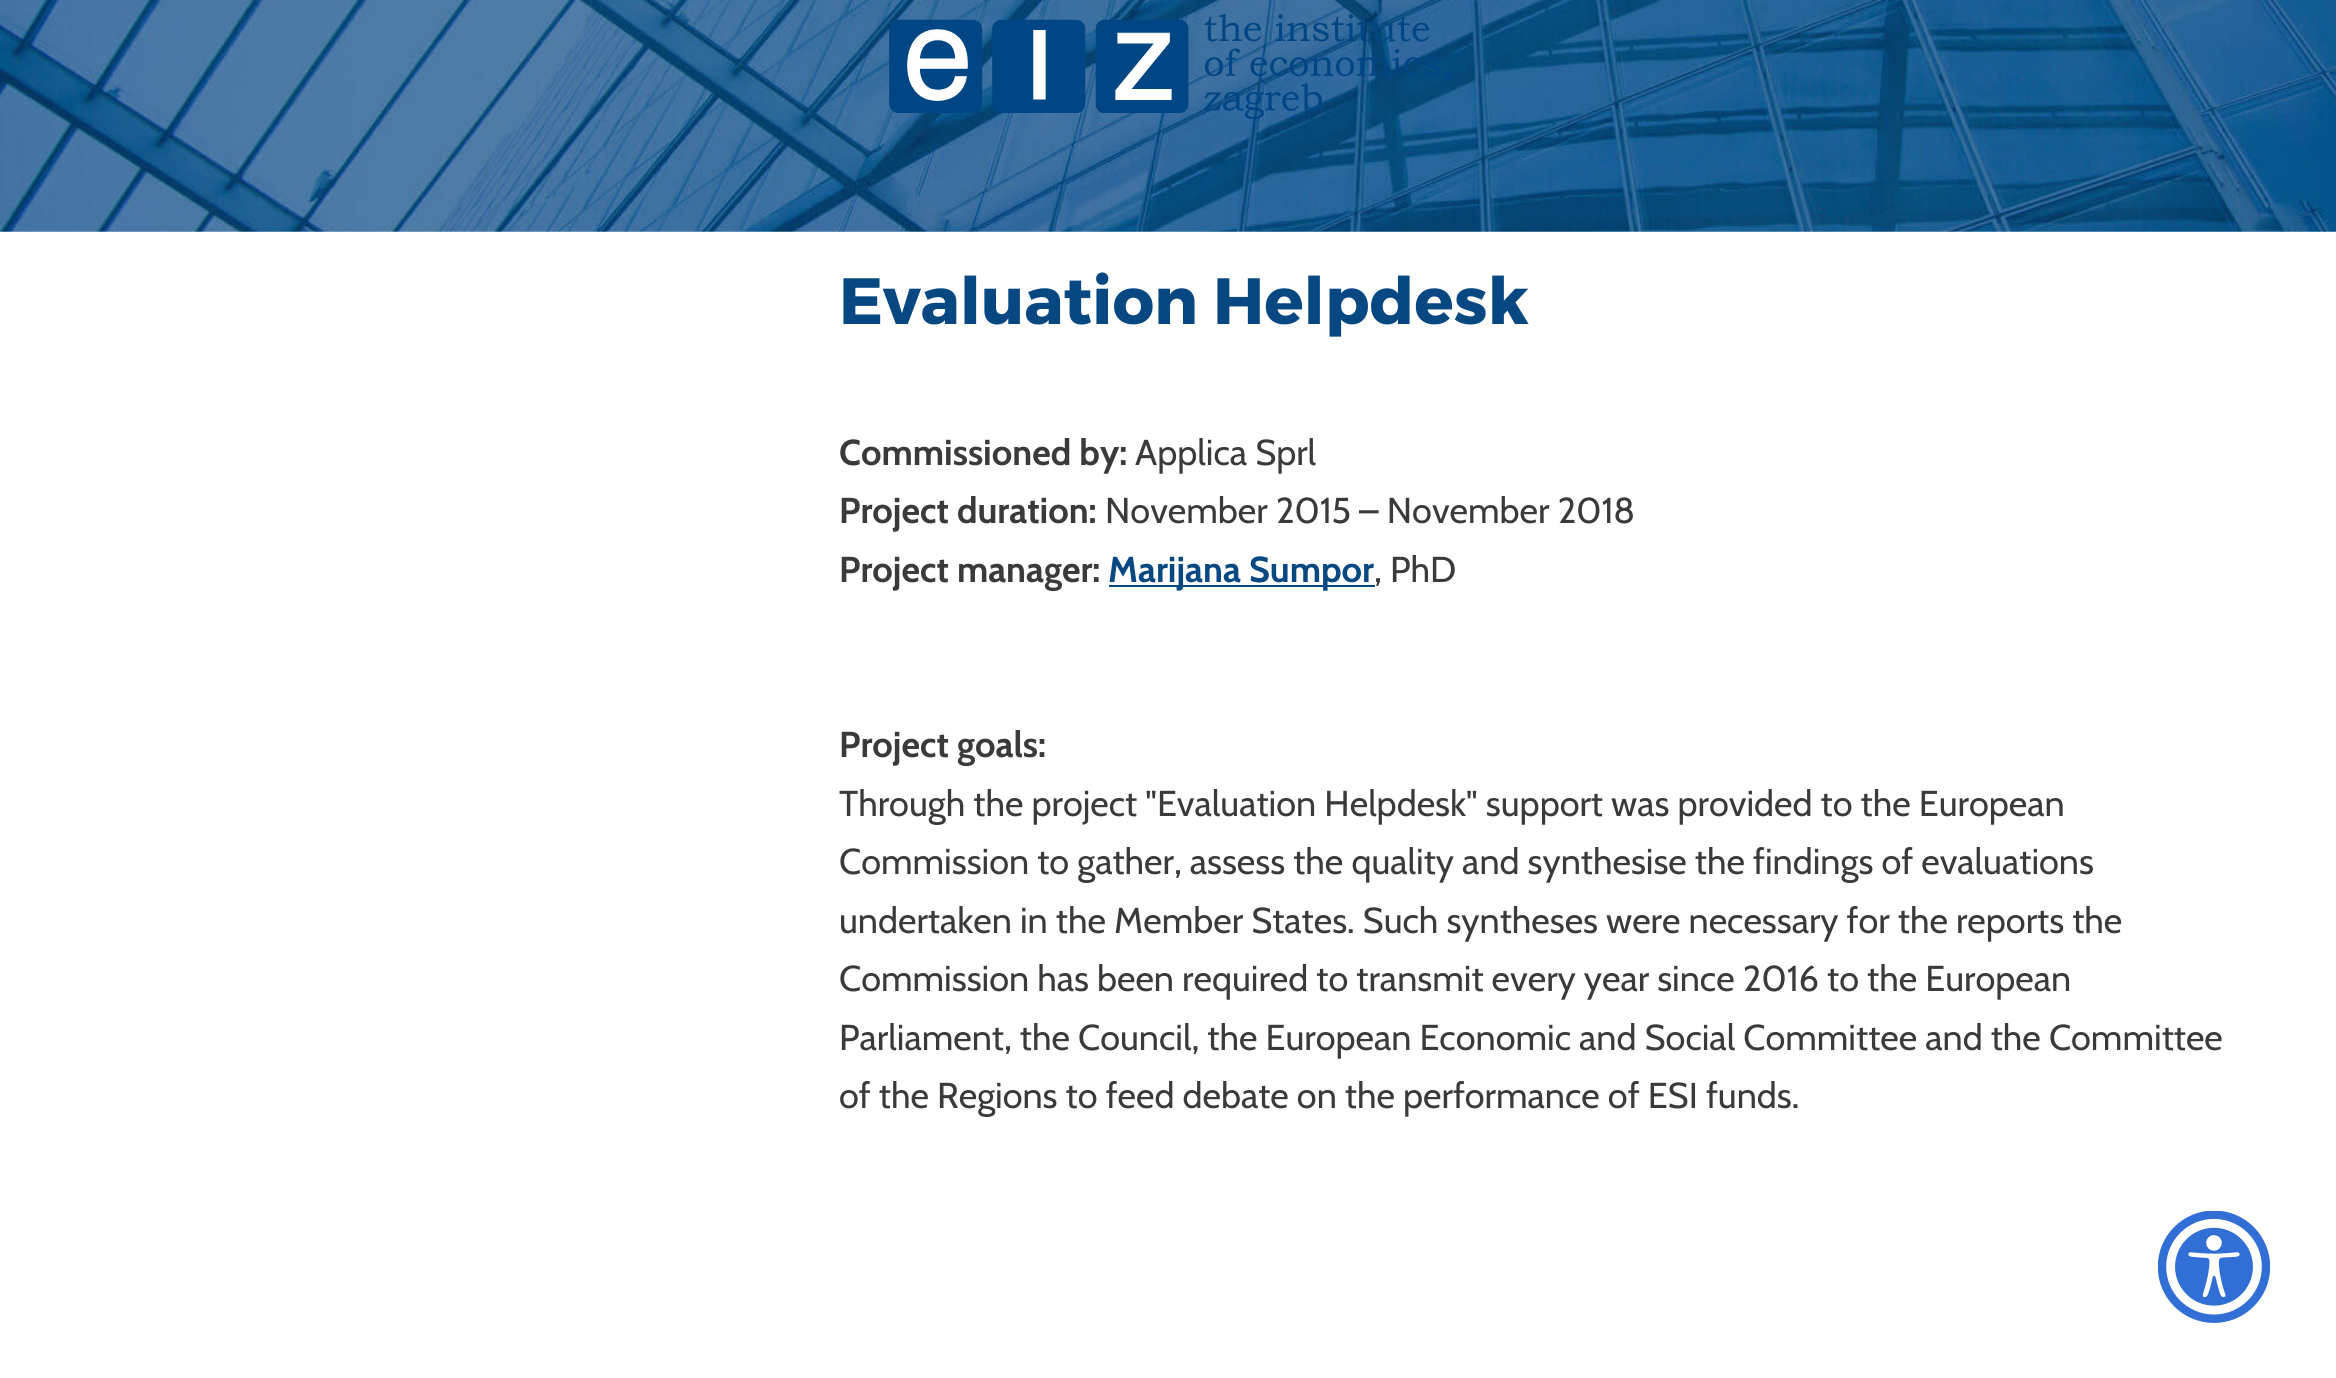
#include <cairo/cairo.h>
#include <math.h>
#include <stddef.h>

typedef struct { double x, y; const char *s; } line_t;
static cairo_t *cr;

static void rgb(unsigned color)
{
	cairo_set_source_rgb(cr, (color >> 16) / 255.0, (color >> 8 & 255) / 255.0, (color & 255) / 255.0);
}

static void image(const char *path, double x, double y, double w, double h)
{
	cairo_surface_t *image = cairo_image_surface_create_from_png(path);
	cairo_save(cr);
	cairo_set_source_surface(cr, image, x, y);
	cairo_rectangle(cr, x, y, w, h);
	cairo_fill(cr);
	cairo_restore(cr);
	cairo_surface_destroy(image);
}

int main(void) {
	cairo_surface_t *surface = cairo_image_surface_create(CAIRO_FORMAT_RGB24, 2336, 1378);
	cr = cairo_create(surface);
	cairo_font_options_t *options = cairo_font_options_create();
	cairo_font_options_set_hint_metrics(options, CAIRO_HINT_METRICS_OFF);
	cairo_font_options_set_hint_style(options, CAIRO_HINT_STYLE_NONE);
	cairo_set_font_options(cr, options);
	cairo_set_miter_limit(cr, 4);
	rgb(0xffffff);
	cairo_paint(cr);
	image("img/1.png", 0, 0, 2336, 232);
	image("img/2.png", 889, 14, 562, 105);
	rgb(0x074883);
	cairo_rectangle(cr, 1109, 585, 266, 2);
	cairo_fill(cr);
	image("img/3.png", 2158, 1211, 112, 112);
	cairo_select_font_face(cr, "Montserrat", CAIRO_FONT_SLANT_NORMAL, CAIRO_FONT_WEIGHT_BOLD);
	cairo_set_font_size(cr, 65.25);
	cairo_move_to(cr, 839, 324);
	cairo_show_text(cr, "Evaluation Helpdesk");
	cairo_select_font_face(cr, "Cabin", CAIRO_FONT_SLANT_NORMAL, CAIRO_FONT_WEIGHT_BOLD);
	cairo_set_font_size(cr, 36);
	rgb(0x3a3a3a);
	cairo_move_to(cr, 839, 465);
	cairo_show_text(cr, "Commissioned by:");
	cairo_select_font_face(cr, "Cabin", CAIRO_FONT_SLANT_NORMAL, CAIRO_FONT_WEIGHT_NORMAL);
	cairo_move_to(cr, 1135, 465);
	cairo_show_text(cr, "Applica Sprl");
	cairo_select_font_face(cr, "Cabin", CAIRO_FONT_SLANT_NORMAL, CAIRO_FONT_WEIGHT_BOLD);
	cairo_move_to(cr, 839, 523);
	cairo_show_text(cr, "Project duration:");
	cairo_select_font_face(cr, "Cabin", CAIRO_FONT_SLANT_NORMAL, CAIRO_FONT_WEIGHT_NORMAL);
	cairo_move_to(cr, 1105, 523);
	cairo_show_text(cr, "November 2015 – November 2018");
	cairo_select_font_face(cr, "Cabin", CAIRO_FONT_SLANT_NORMAL, CAIRO_FONT_WEIGHT_BOLD);
	cairo_move_to(cr, 839, 582);
	cairo_show_text(cr, "Project manager:");
	rgb(0x074883);
	cairo_move_to(cr, 1108, 582);
	cairo_show_text(cr, "Marijana Sumpor");
	cairo_select_font_face(cr, "Cabin", CAIRO_FONT_SLANT_NORMAL, CAIRO_FONT_WEIGHT_NORMAL);
	rgb(0x3a3a3a);
	cairo_move_to(cr, 1374, 582);
	cairo_show_text(cr, ", PhD");
	cairo_select_font_face(cr, "Cabin", CAIRO_FONT_SLANT_NORMAL, CAIRO_FONT_WEIGHT_BOLD);
	cairo_move_to(cr, 839, 757);
	cairo_show_text(cr, "Project goals:");
	cairo_select_font_face(cr, "Cabin", CAIRO_FONT_SLANT_NORMAL, CAIRO_FONT_WEIGHT_NORMAL);
	{
		static const line_t items[] = {
			{839, 816, "Through the project \"Evaluation Helpdesk\" support was provided to the European"},
			{839, 874, "Commission to gather, assess the quality and synthesise the findings of evaluations"},
			{839, 933, "undertaken in the Member States. Such syntheses were necessary for the reports the"},
			{839, 991, "Commission has been required to transmit every year since 2016 to the European"},
			{839, 1050, "Parliament, the Council, the European Economic and Social Committee and the Committee"},
			{839, 1108, "of the Regions to feed debate on the performance of ESI funds."},
		};
		for (size_t i = 0; i < sizeof items / sizeof *items; i++) {
			cairo_move_to(cr, items[i].x, items[i].y);
			cairo_show_text(cr, items[i].s);
		}
	}
	cairo_surface_write_to_png(surface, "page.png");
	cairo_font_options_destroy(options);
	cairo_destroy(cr);
	cairo_surface_destroy(surface);
	return 0;
}
